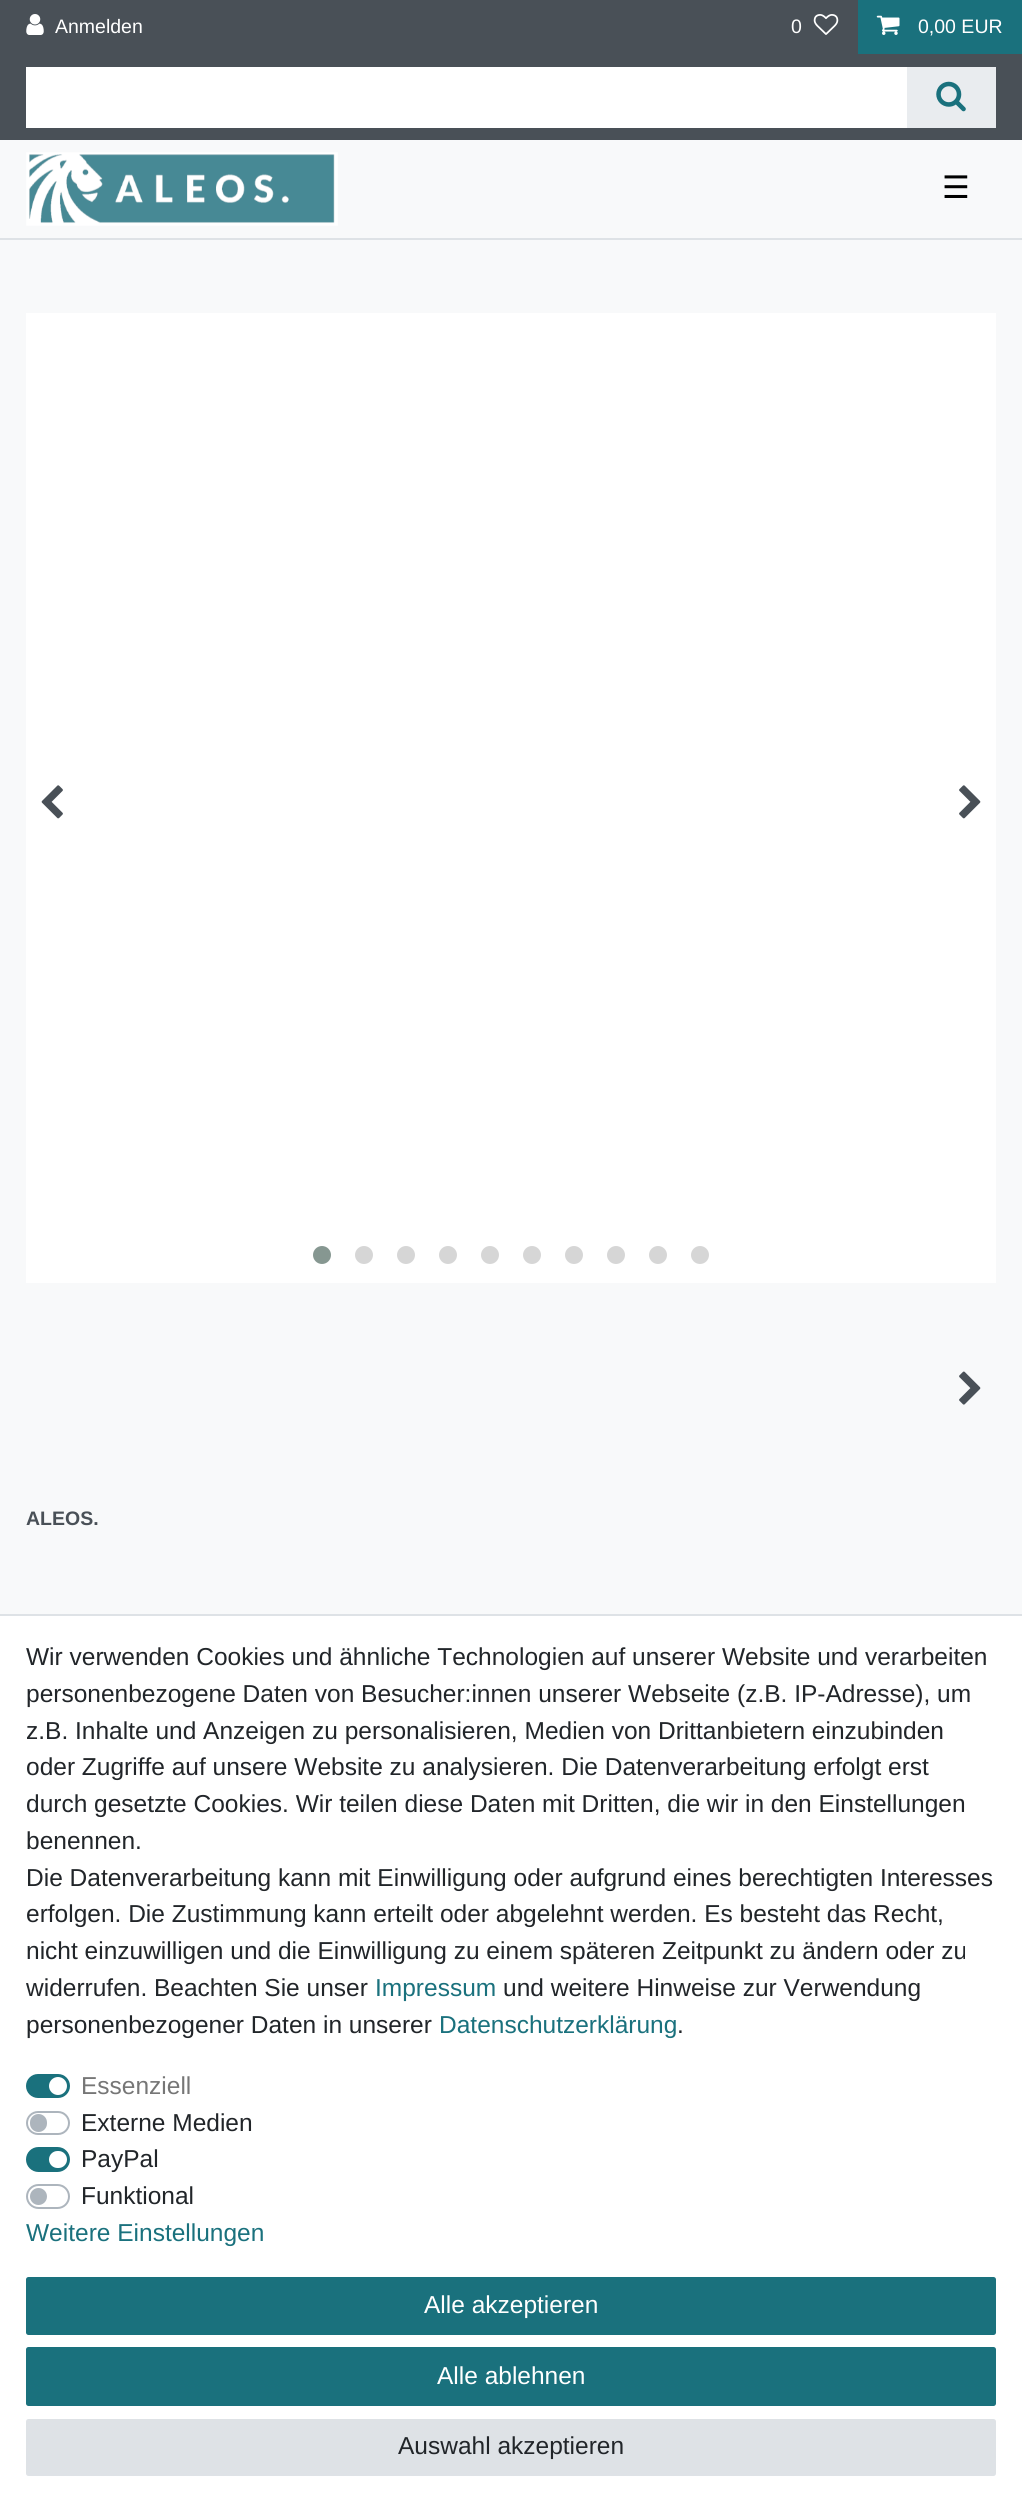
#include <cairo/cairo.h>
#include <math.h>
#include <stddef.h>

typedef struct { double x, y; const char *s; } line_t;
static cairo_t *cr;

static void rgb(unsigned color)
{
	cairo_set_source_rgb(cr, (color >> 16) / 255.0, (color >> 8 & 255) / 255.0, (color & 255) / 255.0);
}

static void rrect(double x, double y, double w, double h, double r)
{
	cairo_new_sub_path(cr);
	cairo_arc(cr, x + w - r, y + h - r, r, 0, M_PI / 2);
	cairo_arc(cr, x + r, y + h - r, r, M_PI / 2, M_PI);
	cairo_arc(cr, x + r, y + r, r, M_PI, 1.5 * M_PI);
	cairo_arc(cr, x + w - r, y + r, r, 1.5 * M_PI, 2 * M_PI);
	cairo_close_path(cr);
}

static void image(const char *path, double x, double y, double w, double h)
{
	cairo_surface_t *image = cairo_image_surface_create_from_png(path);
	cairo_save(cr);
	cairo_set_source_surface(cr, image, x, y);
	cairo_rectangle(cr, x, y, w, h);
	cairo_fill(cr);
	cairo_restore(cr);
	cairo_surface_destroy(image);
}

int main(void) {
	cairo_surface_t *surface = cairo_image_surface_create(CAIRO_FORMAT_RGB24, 1022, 2513);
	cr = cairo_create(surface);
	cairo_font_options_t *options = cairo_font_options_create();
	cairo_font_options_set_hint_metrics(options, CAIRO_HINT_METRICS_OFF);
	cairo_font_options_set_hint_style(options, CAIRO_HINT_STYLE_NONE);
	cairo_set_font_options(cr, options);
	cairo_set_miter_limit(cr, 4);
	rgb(0xf8f9fa);
	cairo_paint(cr);
	rgb(0x495057);
	cairo_rectangle(cr, 0, 0, 1022, 140);
	cairo_fill(cr);
	image("img/1.png", 26, 14, 18, 21);
	image("img/2.png", 813, 14, 26, 21);
	rgb(0x1a717d);
	cairo_rectangle(cr, 858, 0, 164, 54);
	cairo_fill(cr);
	image("img/3.png", 876, 15, 24, 20);
	rgb(0xffffff);
	cairo_rectangle(cr, 26, 67, 881, 61);
	cairo_fill(cr);
	rgb(0xe9ecef);
	cairo_rectangle(cr, 907, 67, 89, 61);
	cairo_fill(cr);
	image("img/4.png", 936, 81, 30, 31);
	rgb(0xdee2e6);
	cairo_rectangle(cr, 0, 238, 1022, 2);
	cairo_fill(cr);
	image("img/5.png", 26, 152, 312, 74);
	rgb(0xffffff);
	cairo_rectangle(cr, 26, 313, 970, 970);
	cairo_fill(cr);
	image("img/6.png", 41, 785, 22, 34);
	image("img/7.png", 959, 785, 22, 34);
	rgb(0x869791);
	cairo_arc(cr, 322, 1255, 9, 0, 2 * M_PI);
	cairo_fill(cr);
	rgb(0xd6d6d6);
	cairo_arc(cr, 364, 1255, 9, 0, 2 * M_PI);
	cairo_fill(cr);
	cairo_arc(cr, 406, 1255, 9, 0, 2 * M_PI);
	cairo_fill(cr);
	cairo_arc(cr, 448, 1255, 9, 0, 2 * M_PI);
	cairo_fill(cr);
	cairo_arc(cr, 490, 1255, 9, 0, 2 * M_PI);
	cairo_fill(cr);
	cairo_arc(cr, 532, 1255, 9, 0, 2 * M_PI);
	cairo_fill(cr);
	cairo_arc(cr, 574, 1255, 9, 0, 2 * M_PI);
	cairo_fill(cr);
	cairo_arc(cr, 616, 1255, 9, 0, 2 * M_PI);
	cairo_fill(cr);
	cairo_arc(cr, 658, 1255, 9, 0, 2 * M_PI);
	cairo_fill(cr);
	cairo_arc(cr, 700, 1255, 9, 0, 2 * M_PI);
	cairo_fill(cr);
	image("img/8.png", 959, 1371, 22, 34);
	rgb(0xffffff);
	cairo_rectangle(cr, 0, 1616, 1022, 897);
	cairo_fill(cr);
	rgb(0xdee2e6);
	cairo_rectangle(cr, 0, 1614, 1022, 2);
	cairo_fill(cr);
	rgb(0x1a717d);
	rrect(27, 2075, 42, 22, 11);
	cairo_fill_preserve(cr);
	cairo_stroke(cr);
	rgb(0xffffff);
	cairo_arc(cr, 58, 2086, 9, 0, 2 * M_PI);
	cairo_fill(cr);
	rrect(27, 2112, 42, 22, 11);
	rgb(0xadb5bd);
	cairo_stroke(cr);
	rrect(30, 2114, 17, 18, 8.5);
	cairo_fill(cr);
	rgb(0x1a717d);
	rrect(27, 2148, 42, 23, 11.5);
	cairo_fill_preserve(cr);
	cairo_stroke(cr);
	rgb(0xffffff);
	rrect(49, 2151, 18, 17, 8.5);
	cairo_fill(cr);
	rrect(27, 2185, 42, 23, 11.5);
	rgb(0xadb5bd);
	cairo_stroke(cr);
	cairo_arc(cr, 38.5, 2196.5, 8.5, 0, 2 * M_PI);
	cairo_fill(cr);
	rgb(0x1a717d);
	rrect(27, 2278, 968, 56, 1.5);
	cairo_fill_preserve(cr);
	cairo_stroke(cr);
	rrect(27, 2348, 968, 57, 1.5);
	cairo_fill_preserve(cr);
	cairo_stroke(cr);
	rgb(0xdee2e6);
	rrect(27, 2420, 968, 55, 1.5);
	cairo_fill_preserve(cr);
	cairo_stroke(cr);
	cairo_select_font_face(cr, "Liberation Sans", CAIRO_FONT_SLANT_NORMAL, CAIRO_FONT_WEIGHT_NORMAL);
	cairo_set_font_size(cr, 19.5);
	rgb(0xffffff);
	{
		static const line_t items[] = {
			{55, 33, "Anmelden"},
			{791, 33, "0"},
			{918, 33, "0,00 EUR"},
		};
		for (size_t i = 0; i < sizeof items / sizeof *items; i++) {
			cairo_move_to(cr, items[i].x, items[i].y);
			cairo_show_text(cr, items[i].s);
		}
	}
	cairo_select_font_face(cr, "DejaVu Sans", CAIRO_FONT_SLANT_NORMAL, CAIRO_FONT_WEIGHT_NORMAL);
	cairo_set_font_size(cr, 31);
	rgb(0x000000);
	cairo_move_to(cr, 942, 198);
	cairo_show_text(cr, "☰");
	cairo_select_font_face(cr, "Liberation Sans", CAIRO_FONT_SLANT_NORMAL, CAIRO_FONT_WEIGHT_BOLD);
	cairo_set_font_size(cr, 19.5);
	rgb(0x495057);
	cairo_move_to(cr, 26, 1525);
	cairo_show_text(cr, "ALEOS.");
	cairo_select_font_face(cr, "Liberation Sans", CAIRO_FONT_SLANT_NORMAL, CAIRO_FONT_WEIGHT_NORMAL);
	cairo_set_font_size(cr, 24.5);
	rgb(0x212529);
	{
		static const line_t items[] = {
			{26, 1665, "Wir verwenden Cookies und ähnliche Technologien auf unserer Website und verarbeiten"},
			{26, 1702, "personenbezogene Daten von Besucher:innen unserer Webseite (z.B. IP-Adresse), um"},
			{26, 1739, "z.B. Inhalte und Anzeigen zu personalisieren, Medien von Drittanbietern einzubinden"},
			{26, 1775, "oder Zugriffe auf unsere Website zu analysieren. Die Datenverarbeitung erfolgt erst"},
			{26, 1812, "durch gesetzte Cookies. Wir teilen diese Daten mit Dritten, die wir in den Einstellungen"},
			{26, 1849, "benennen."},
			{26, 1886, "Die Datenverarbeitung kann mit Einwilligung oder aufgrund eines berechtigten Interesses"},
			{26, 1922, "erfolgen. Die Zustimmung kann erteilt oder abgelehnt werden. Es besteht das Recht,"},
			{26, 1959, "nicht einzuwilligen und die Einwilligung zu einem späteren Zeitpunkt zu ändern oder zu"},
			{26, 1996, "widerrufen. Beachten Sie unser"},
		};
		for (size_t i = 0; i < sizeof items / sizeof *items; i++) {
			cairo_move_to(cr, items[i].x, items[i].y);
			cairo_show_text(cr, items[i].s);
		}
	}
	rgb(0x1a717d);
	cairo_move_to(cr, 375, 1996);
	cairo_show_text(cr, "Impressum");
	rgb(0x212529);
	cairo_move_to(cr, 503, 1996);
	cairo_show_text(cr, "und weitere Hinweise zur Verwendung");
	cairo_move_to(cr, 26, 2033);
	cairo_show_text(cr, "personenbezogener Daten in unserer");
	rgb(0x1a717d);
	cairo_move_to(cr, 439, 2033);
	cairo_show_text(cr, "Datenschutzerklärung");
	rgb(0x212529);
	cairo_move_to(cr, 677, 2033);
	cairo_show_text(cr, ".");
	rgb(0x767676);
	cairo_move_to(cr, 81, 2094);
	cairo_show_text(cr, "Essenziell");
	rgb(0x212529);
	{
		static const line_t items[] = {
			{81, 2131, "Externe Medien"},
			{81, 2167, "PayPal"},
			{81, 2204, "Funktional"},
		};
		for (size_t i = 0; i < sizeof items / sizeof *items; i++) {
			cairo_move_to(cr, items[i].x, items[i].y);
			cairo_show_text(cr, items[i].s);
		}
	}
	rgb(0x1a717d);
	cairo_move_to(cr, 26, 2241);
	cairo_show_text(cr, "Weitere Einstellungen");
	rgb(0xffffff);
	cairo_move_to(cr, 424, 2313);
	cairo_show_text(cr, "Alle akzeptieren");
	cairo_move_to(cr, 437, 2384);
	cairo_show_text(cr, "Alle ablehnen");
	rgb(0x212529);
	cairo_move_to(cr, 398, 2454);
	cairo_show_text(cr, "Auswahl akzeptieren");
	cairo_surface_write_to_png(surface, "page.png");
	cairo_font_options_destroy(options);
	cairo_destroy(cr);
	cairo_surface_destroy(surface);
	return 0;
}
